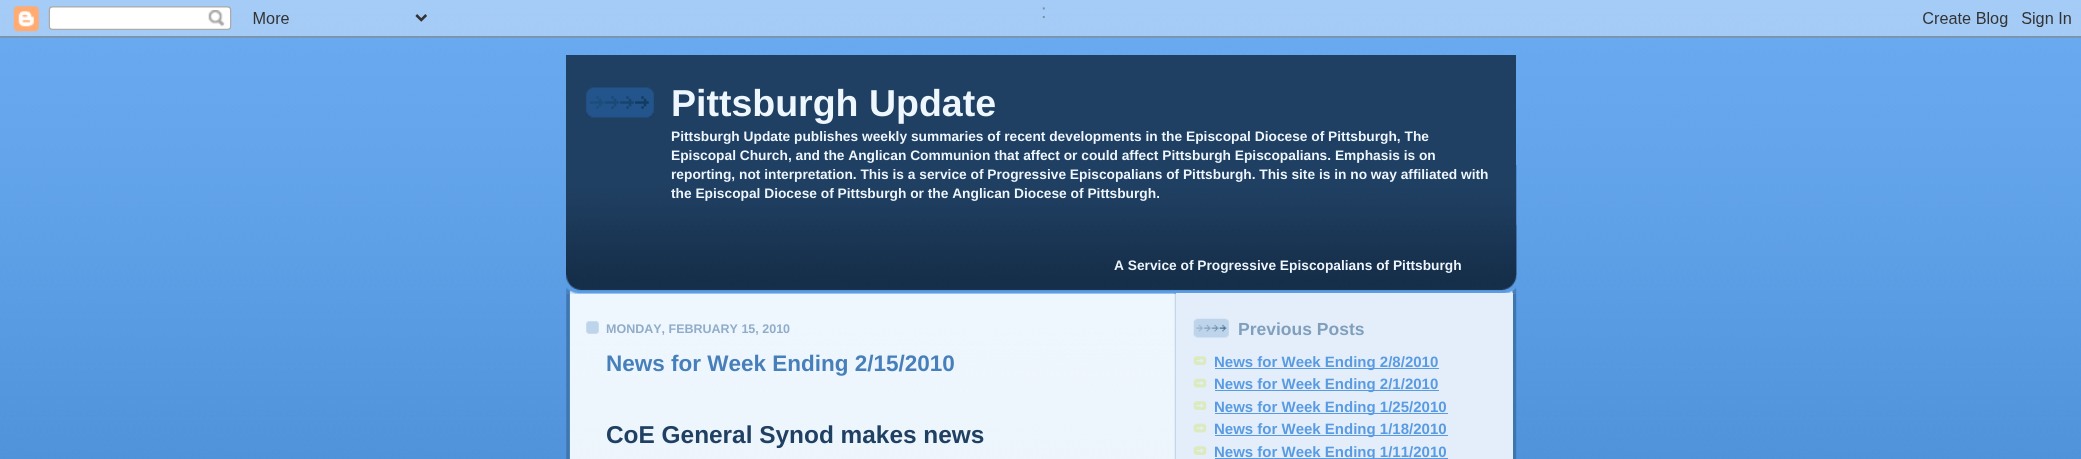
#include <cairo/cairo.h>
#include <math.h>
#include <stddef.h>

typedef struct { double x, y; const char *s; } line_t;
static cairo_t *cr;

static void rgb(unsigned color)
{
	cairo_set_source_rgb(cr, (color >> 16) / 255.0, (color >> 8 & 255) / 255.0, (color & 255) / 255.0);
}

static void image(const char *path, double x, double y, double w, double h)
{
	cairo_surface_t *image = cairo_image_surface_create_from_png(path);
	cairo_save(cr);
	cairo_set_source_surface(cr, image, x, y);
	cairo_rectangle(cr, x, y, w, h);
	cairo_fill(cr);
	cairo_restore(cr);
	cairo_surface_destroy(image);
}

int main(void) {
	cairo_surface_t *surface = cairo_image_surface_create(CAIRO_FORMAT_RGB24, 2081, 459);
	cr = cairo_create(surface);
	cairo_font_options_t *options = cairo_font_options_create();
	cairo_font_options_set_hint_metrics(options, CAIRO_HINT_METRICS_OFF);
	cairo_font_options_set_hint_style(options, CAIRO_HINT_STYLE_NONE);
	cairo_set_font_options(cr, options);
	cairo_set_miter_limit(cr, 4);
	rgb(0xffffff);
	cairo_paint(cr);
	image("img/1.png", 0, 0, 2081, 459);
	image("img/3.png", 566, 275, 951, 19);
	rgb(0x204063);
	cairo_rectangle(cr, 566, 55, 950, 220);
	cairo_fill(cr);
	image("img/4.png", 566, 165, 951, 110);
	image("img/5.png", 586, 87, 68, 31);
	image("img/6.png", 566, 225, 951, 50);
	image("img/7.png", 566, 293, 951, 166);
	image("img/8.png", 570, 293, 604, 166);
	image("img/9.png", 586, 321, 13, 13);
	rgb(0xe3eefa);
	cairo_rectangle(cr, 1176, 293, 337, 166);
	cairo_fill(cr);
	image("img/10.png", 1193, 318, 36, 20);
	image("img/11.png", 1193, 356, 14, 9);
	rgb(0x599be2);
	cairo_rectangle(cr, 1215, 368, 224, 1);
	cairo_fill(cr);
	image("img/12.png", 1193, 378, 14, 10);
	cairo_rectangle(cr, 1215, 390, 224, 1);
	cairo_fill(cr);
	image("img/11.png", 1193, 401, 14, 9);
	cairo_rectangle(cr, 1215, 413, 233, 1);
	cairo_fill(cr);
	image("img/12.png", 1193, 423, 14, 10);
	cairo_rectangle(cr, 1215, 435, 233, 1);
	cairo_fill(cr);
	image("img/11.png", 1193, 446, 14, 9);
	cairo_rectangle(cr, 1215, 458, 233, 1);
	cairo_fill(cr);
	cairo_select_font_face(cr, "Liberation Sans", CAIRO_FONT_SLANT_NORMAL, CAIRO_FONT_WEIGHT_NORMAL);
	cairo_set_font_size(cr, 20);
	rgb(0x204063);
	cairo_move_to(cr, 1041, 18);
	cairo_show_text(cr, ":");
	image("img/2.png", 0, 0, 2081, 38);
	cairo_select_font_face(cr, "Liberation Sans", CAIRO_FONT_SLANT_NORMAL, CAIRO_FONT_WEIGHT_BOLD);
	cairo_set_font_size(cr, 37.5);
	rgb(0xeef6fe);
	cairo_move_to(cr, 671, 116);
	cairo_show_text(cr, "Pittsburgh Update");
	cairo_set_font_size(cr, 13.75);
	{
		static const line_t items[] = {
			{671, 141, "Pittsburgh Update publishes weekly summaries of recent developments in the Episcopal Diocese of Pittsburgh, The"},
			{671, 160, "Episcopal Church, and the Anglican Communion that affect or could affect Pittsburgh Episcopalians. Emphasis is on"},
			{671, 179, "reporting, not interpretation. This is a service of Progressive Episcopalians of Pittsburgh. This site is in no way affiliated with"},
			{671, 198, "the Episcopal Diocese of Pittsburgh or the Anglican Diocese of Pittsburgh."},
			{1114, 270, "A Service of Progressive Episcopalians of Pittsburgh"},
		};
		for (size_t i = 0; i < sizeof items / sizeof *items; i++) {
			cairo_move_to(cr, items[i].x, items[i].y);
			cairo_show_text(cr, items[i].s);
		}
	}
	cairo_set_font_size(cr, 12.5);
	rgb(0x8facc8);
	cairo_move_to(cr, 606, 333);
	cairo_show_text(cr, "MONDAY, FEBRUARY 15, 2010");
	cairo_set_font_size(cr, 22.5);
	rgb(0x477fba);
	cairo_move_to(cr, 606, 371);
	cairo_show_text(cr, "News for Week Ending 2/15/2010");
	cairo_set_font_size(cr, 24.4);
	rgb(0x204063);
	cairo_move_to(cr, 606, 443);
	cairo_show_text(cr, "CoE General Synod makes news");
	cairo_set_font_size(cr, 17.5);
	rgb(0x809fbd);
	cairo_move_to(cr, 1238, 335);
	cairo_show_text(cr, "Previous Posts");
	cairo_set_font_size(cr, 15);
	rgb(0x599be2);
	{
		static const line_t items[] = {
			{1214, 367, "News for Week Ending 2/8/2010"},
			{1214, 389, "News for Week Ending 2/1/2010"},
			{1214, 412, "News for Week Ending 1/25/2010"},
			{1214, 434, "News for Week Ending 1/18/2010"},
			{1214, 457, "News for Week Ending 1/11/2010"},
		};
		for (size_t i = 0; i < sizeof items / sizeof *items; i++) {
			cairo_move_to(cr, items[i].x, items[i].y);
			cairo_show_text(cr, items[i].s);
		}
	}
	cairo_surface_write_to_png(surface, "page.png");
	cairo_font_options_destroy(options);
	cairo_destroy(cr);
	cairo_surface_destroy(surface);
	return 0;
}
